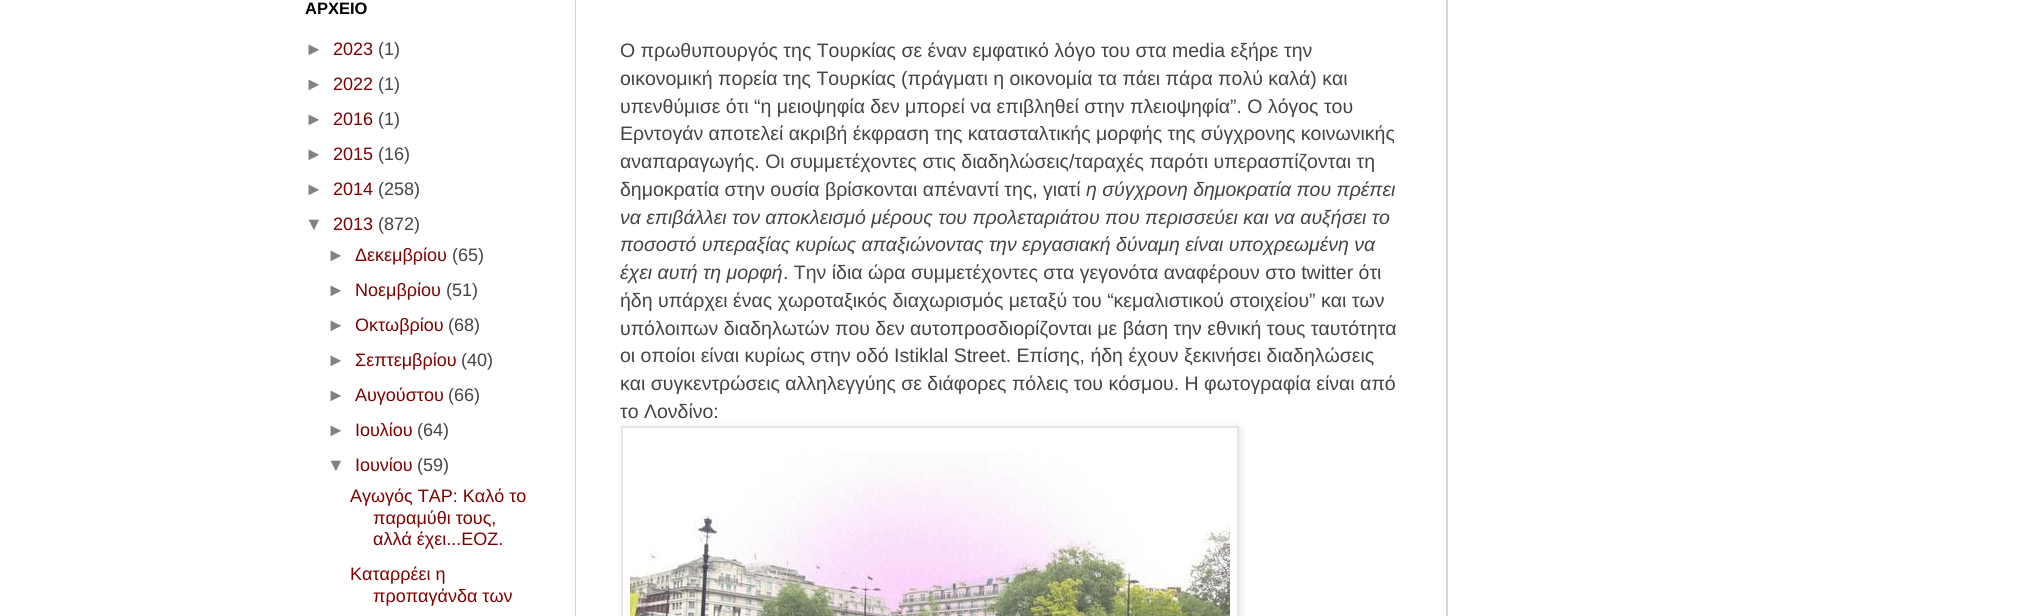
#include <cairo/cairo.h>
#include <math.h>
#include <stddef.h>

typedef struct { double x, y; const char *s; } line_t;
static cairo_t *cr;

static void rgb(unsigned color)
{
	cairo_set_source_rgb(cr, (color >> 16) / 255.0, (color >> 8 & 255) / 255.0, (color & 255) / 255.0);
}

static void rrect(double x, double y, double w, double h, double r)
{
	cairo_new_sub_path(cr);
	cairo_arc(cr, x + w - r, y + h - r, r, 0, M_PI / 2);
	cairo_arc(cr, x + r, y + h - r, r, M_PI / 2, M_PI);
	cairo_arc(cr, x + r, y + r, r, M_PI, 1.5 * M_PI);
	cairo_arc(cr, x + w - r, y + r, r, 1.5 * M_PI, 2 * M_PI);
	cairo_close_path(cr);
}

static void soft_shadow(double x, double y, double w, double h, double r, double blur, double alpha)
{
	cairo_push_group_with_content(cr, CAIRO_CONTENT_ALPHA);
	cairo_set_operator(cr, CAIRO_OPERATOR_SOURCE);
	for (int i = 15; i >= -15 && fmin(w, h) + blur * i / 3 > 0; i -= 2) {
		double e = blur * i / 6;
		cairo_set_source_rgba(cr, 0, 0, 0, alpha * erfc((i - 1) / 8.5) / 2);
		rrect(x - e, y - e, w + 2 * e, h + 2 * e, fmax(0, fmin(r + e + blur * .6, fmin(w, h) / 2 + e)));
		cairo_fill(cr);
	}
	cairo_pattern_t *soft = cairo_pop_group(cr);
	cairo_mask(cr, soft);
	cairo_pattern_destroy(soft);
}

static void image(const char *path, double x, double y, double w, double h)
{
	cairo_surface_t *image = cairo_image_surface_create_from_png(path);
	cairo_save(cr);
	cairo_set_source_surface(cr, image, x, y);
	cairo_rectangle(cr, x, y, w, h);
	cairo_fill(cr);
	cairo_restore(cr);
	cairo_surface_destroy(image);
}

int main(void) {
	cairo_surface_t *surface = cairo_image_surface_create(CAIRO_FORMAT_RGB24, 2020, 616);
	cr = cairo_create(surface);
	cairo_font_options_t *options = cairo_font_options_create();
	cairo_font_options_set_hint_metrics(options, CAIRO_HINT_METRICS_OFF);
	cairo_font_options_set_hint_style(options, CAIRO_HINT_STYLE_NONE);
	cairo_set_font_options(cr, options);
	cairo_set_miter_limit(cr, 4);
	rgb(0xffffff);
	cairo_paint(cr);
	rgb(0xd3d3d3);
	cairo_rectangle(cr, 575, 0, 1, 616);
	cairo_fill(cr);
	cairo_rectangle(cr, 1446, 0, 2, 616);
	cairo_fill(cr);
	cairo_save(cr);
	cairo_set_fill_rule(cr, CAIRO_FILL_RULE_EVEN_ODD);
	cairo_new_path(cr);
	cairo_move_to(cr, 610, 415);
	cairo_line_to(cr, 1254, 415);
	cairo_line_to(cr, 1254, 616);
	cairo_line_to(cr, 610, 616);
	cairo_close_path(cr);
	cairo_move_to(cr, 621, 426);
	cairo_line_to(cr, 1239, 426);
	cairo_line_to(cr, 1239, 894);
	cairo_line_to(cr, 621, 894);
	cairo_close_path(cr);
	cairo_clip(cr);
	rgb(0x000000);
	soft_shadow(623, 428, 618, 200, 0, 4, 0.1);
	cairo_restore(cr);
	cairo_rectangle(cr, 622, 427, 616, 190);
	rgb(0xe5e5e5);
	cairo_stroke(cr);
	image("img/1.png", 630, 451, 600, 165);
	cairo_select_font_face(cr, "Liberation Sans", CAIRO_FONT_SLANT_NORMAL, CAIRO_FONT_WEIGHT_BOLD);
	cairo_set_font_size(cr, 16.5);
	rgb(0x000000);
	cairo_move_to(cr, 305, 14);
	cairo_show_text(cr, "ΑΡΧΕΙΟ");
	cairo_select_font_face(cr, "Liberation Sans", CAIRO_FONT_SLANT_NORMAL, CAIRO_FONT_WEIGHT_NORMAL);
	cairo_set_font_size(cr, 18);
	rgb(0x828282);
	cairo_move_to(cr, 305, 55);
	cairo_show_text(cr, "►");
	rgb(0x800000);
	cairo_move_to(cr, 333, 55);
	cairo_show_text(cr, "2023");
	rgb(0x444444);
	cairo_move_to(cr, 378, 55);
	cairo_show_text(cr, "(1)");
	rgb(0x828282);
	cairo_move_to(cr, 305, 90);
	cairo_show_text(cr, "►");
	rgb(0x800000);
	cairo_move_to(cr, 333, 90);
	cairo_show_text(cr, "2022");
	rgb(0x444444);
	cairo_move_to(cr, 378, 90);
	cairo_show_text(cr, "(1)");
	rgb(0x828282);
	cairo_move_to(cr, 305, 125);
	cairo_show_text(cr, "►");
	rgb(0x800000);
	cairo_move_to(cr, 333, 125);
	cairo_show_text(cr, "2016");
	rgb(0x444444);
	cairo_move_to(cr, 378, 125);
	cairo_show_text(cr, "(1)");
	rgb(0x828282);
	cairo_move_to(cr, 305, 160);
	cairo_show_text(cr, "►");
	rgb(0x800000);
	cairo_move_to(cr, 333, 160);
	cairo_show_text(cr, "2015");
	rgb(0x444444);
	cairo_move_to(cr, 378, 160);
	cairo_show_text(cr, "(16)");
	rgb(0x828282);
	cairo_move_to(cr, 305, 195);
	cairo_show_text(cr, "►");
	rgb(0x800000);
	cairo_move_to(cr, 333, 195);
	cairo_show_text(cr, "2014");
	rgb(0x444444);
	cairo_move_to(cr, 378, 195);
	cairo_show_text(cr, "(258)");
	rgb(0x828282);
	cairo_move_to(cr, 305, 230);
	cairo_show_text(cr, "▼");
	rgb(0x800000);
	cairo_move_to(cr, 333, 230);
	cairo_show_text(cr, "2013");
	rgb(0x444444);
	cairo_move_to(cr, 378, 230);
	cairo_show_text(cr, "(872)");
	rgb(0x828282);
	cairo_move_to(cr, 327, 261);
	cairo_show_text(cr, "►");
	rgb(0x800000);
	cairo_move_to(cr, 355, 261);
	cairo_show_text(cr, "Δεκεμβρίου");
	rgb(0x444444);
	cairo_move_to(cr, 452, 261);
	cairo_show_text(cr, "(65)");
	rgb(0x828282);
	cairo_move_to(cr, 327, 296);
	cairo_show_text(cr, "►");
	rgb(0x800000);
	cairo_move_to(cr, 355, 296);
	cairo_show_text(cr, "Νοεμβρίου");
	rgb(0x444444);
	cairo_move_to(cr, 446, 296);
	cairo_show_text(cr, "(51)");
	rgb(0x828282);
	cairo_move_to(cr, 327, 331);
	cairo_show_text(cr, "►");
	rgb(0x800000);
	cairo_move_to(cr, 355, 331);
	cairo_show_text(cr, "Οκτωβρίου");
	rgb(0x444444);
	cairo_move_to(cr, 448, 331);
	cairo_show_text(cr, "(68)");
	rgb(0x828282);
	cairo_move_to(cr, 327, 366);
	cairo_show_text(cr, "►");
	rgb(0x800000);
	cairo_move_to(cr, 355, 366);
	cairo_show_text(cr, "Σεπτεμβρίου");
	rgb(0x444444);
	cairo_move_to(cr, 461, 366);
	cairo_show_text(cr, "(40)");
	rgb(0x828282);
	cairo_move_to(cr, 327, 401);
	cairo_show_text(cr, "►");
	rgb(0x800000);
	cairo_move_to(cr, 355, 401);
	cairo_show_text(cr, "Αυγούστου");
	rgb(0x444444);
	cairo_move_to(cr, 448, 401);
	cairo_show_text(cr, "(66)");
	rgb(0x828282);
	cairo_move_to(cr, 327, 436);
	cairo_show_text(cr, "►");
	rgb(0x800000);
	cairo_move_to(cr, 355, 436);
	cairo_show_text(cr, "Ιουλίου");
	rgb(0x444444);
	cairo_move_to(cr, 417, 436);
	cairo_show_text(cr, "(64)");
	rgb(0x828282);
	cairo_move_to(cr, 327, 471);
	cairo_show_text(cr, "▼");
	rgb(0x800000);
	cairo_move_to(cr, 355, 471);
	cairo_show_text(cr, "Ιουνίου");
	rgb(0x444444);
	cairo_move_to(cr, 417, 471);
	cairo_show_text(cr, "(59)");
	rgb(0x800000);
	{
		static const line_t items[] = {
			{350, 502, "Αγωγός ΤΑΡ: Καλό το"},
			{373, 524, "παραμύθι τους,"},
			{373, 545, "αλλά έχει...ΕΟΖ."},
			{350, 580, "Καταρρέει η"},
			{373, 602, "προπαγάνδα των"},
		};
		for (size_t i = 0; i < sizeof items / sizeof *items; i++) {
			cairo_move_to(cr, items[i].x, items[i].y);
			cairo_show_text(cr, items[i].s);
		}
	}
	cairo_set_font_size(cr, 19.5);
	rgb(0x444444);
	{
		static const line_t items[] = {
			{620, 57, "Ο πρωθυπουργός της Τουρκίας σε έναν εμφατικό λόγο του στα media εξήρε την"},
			{620, 85, "οικονομική πορεία της Τουρκίας (πράγματι η οικονομία τα πάει πάρα πολύ καλά) και"},
			{620, 113, "υπενθύμισε ότι “η μειοψηφία δεν μπορεί να επιβληθεί στην πλειοψηφία”. Ο λόγος του"},
			{620, 140, "Ερντογάν αποτελεί ακριβή έκφραση της κατασταλτικής μορφής της σύγχρονης κοινωνικής"},
			{620, 168, "αναπαραγωγής. Οι συμμετέχοντες στις διαδηλώσεις/ταραχές παρότι υπερασπίζονται τη"},
			{620, 196, "δημοκρατία στην ουσία βρίσκονται απέναντί της, γιατί"},
		};
		for (size_t i = 0; i < sizeof items / sizeof *items; i++) {
			cairo_move_to(cr, items[i].x, items[i].y);
			cairo_show_text(cr, items[i].s);
		}
	}
	cairo_select_font_face(cr, "Liberation Sans", CAIRO_FONT_SLANT_ITALIC, CAIRO_FONT_WEIGHT_NORMAL);
	{
		static const line_t items[] = {
			{1086, 196, "η σύγχρονη δημοκρατία που πρέπει"},
			{620, 224, "να επιβάλλει τον αποκλεισμό μέρους του προλεταριάτου που περισσεύει και να αυξήσει το"},
			{620, 251, "ποσοστό υπεραξίας κυρίως απαξιώνοντας την εργασιακή δύναμη είναι υποχρεωμένη να"},
			{620, 279, "έχει αυτή τη μορφή"},
		};
		for (size_t i = 0; i < sizeof items / sizeof *items; i++) {
			cairo_move_to(cr, items[i].x, items[i].y);
			cairo_show_text(cr, items[i].s);
		}
	}
	cairo_select_font_face(cr, "Liberation Sans", CAIRO_FONT_SLANT_NORMAL, CAIRO_FONT_WEIGHT_NORMAL);
	{
		static const line_t items[] = {
			{783, 279, ". Την ίδια ώρα συμμετέχοντες στα γεγονότα αναφέρουν στο twitter ότι"},
			{620, 307, "ήδη υπάρχει ένας χωροταξικός διαχωρισμός μεταξύ του “κεμαλιστικού στοιχείου” και των"},
			{620, 335, "υπόλοιπων διαδηλωτών που δεν αυτοπροσδιορίζονται με βάση την εθνική τους ταυτότητα"},
			{620, 362, "οι οποίοι είναι κυρίως στην οδό Istiklal Street. Επίσης, ήδη έχουν ξεκινήσει διαδηλώσεις"},
			{620, 390, "και συγκεντρώσεις αλληλεγγύης σε διάφορες πόλεις του κόσμου. Η φωτογραφία είναι από"},
			{620, 418, "το Λονδίνο:"},
		};
		for (size_t i = 0; i < sizeof items / sizeof *items; i++) {
			cairo_move_to(cr, items[i].x, items[i].y);
			cairo_show_text(cr, items[i].s);
		}
	}
	cairo_surface_write_to_png(surface, "page.png");
	cairo_font_options_destroy(options);
	cairo_destroy(cr);
	cairo_surface_destroy(surface);
	return 0;
}
